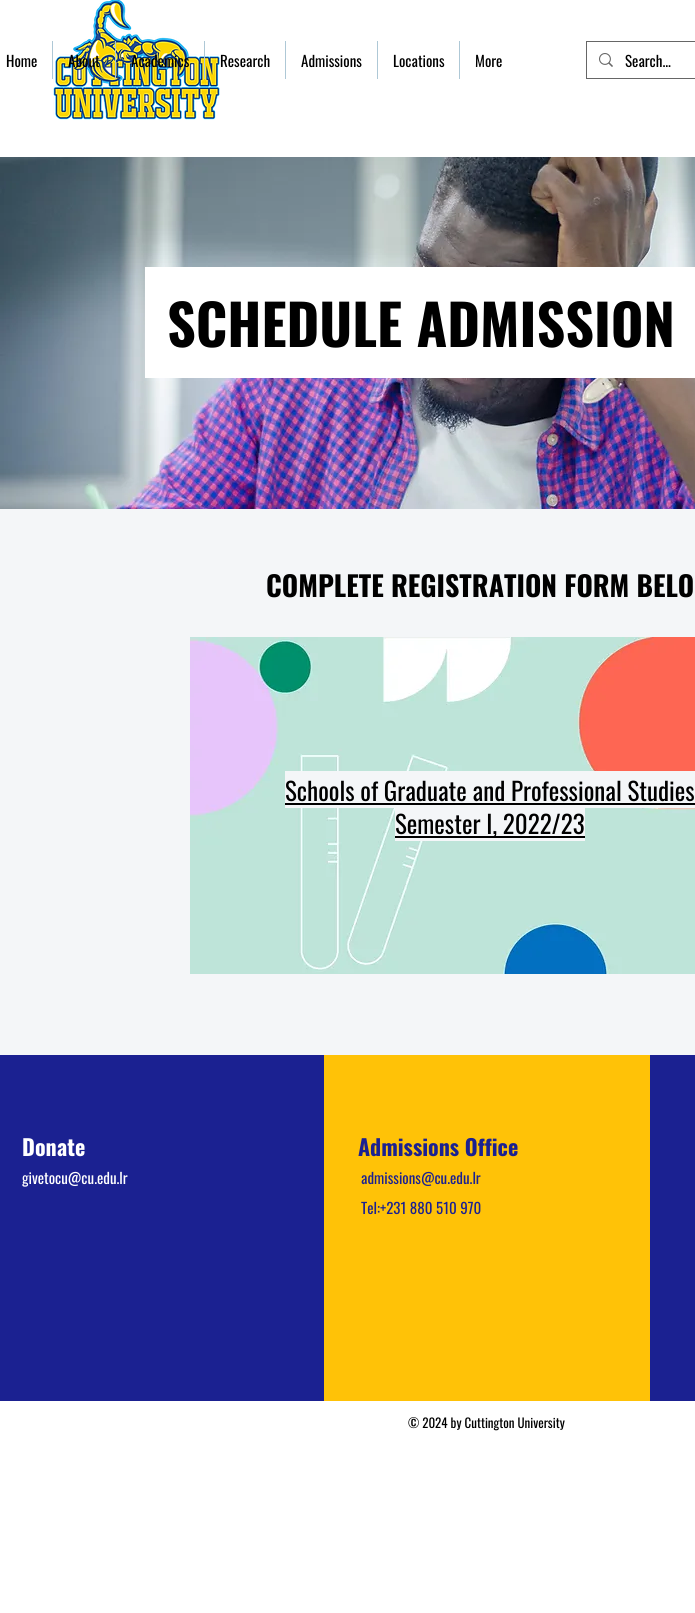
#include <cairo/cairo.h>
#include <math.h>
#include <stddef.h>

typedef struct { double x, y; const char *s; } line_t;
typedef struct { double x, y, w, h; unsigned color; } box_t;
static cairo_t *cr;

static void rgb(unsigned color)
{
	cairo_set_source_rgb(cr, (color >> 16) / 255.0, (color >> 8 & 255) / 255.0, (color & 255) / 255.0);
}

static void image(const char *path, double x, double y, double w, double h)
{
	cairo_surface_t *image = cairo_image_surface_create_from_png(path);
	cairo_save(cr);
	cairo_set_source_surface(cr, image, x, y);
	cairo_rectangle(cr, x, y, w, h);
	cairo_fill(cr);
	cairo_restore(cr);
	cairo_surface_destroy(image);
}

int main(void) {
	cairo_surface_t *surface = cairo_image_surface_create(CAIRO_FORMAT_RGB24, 695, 1613);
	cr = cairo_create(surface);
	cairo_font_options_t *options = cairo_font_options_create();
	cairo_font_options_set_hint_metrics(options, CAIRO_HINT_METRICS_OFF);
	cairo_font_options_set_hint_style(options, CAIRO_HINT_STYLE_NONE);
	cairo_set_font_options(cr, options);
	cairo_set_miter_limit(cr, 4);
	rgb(0xffffff);
	cairo_paint(cr);
	image("img/1.png", 53, 0, 167, 120);
	{
		static const box_t items[] = {
			{52, 41, 1, 38, 0xaec8d6},
			{115, 41, 1, 38, 0xaec8d6},
			{204, 41, 1, 38, 0xaec8d6},
			{285, 41, 1, 38, 0xaec8d6},
			{377, 41, 1, 38, 0xaec8d6},
			{459, 41, 1, 38, 0xaec8d6},
		};
		for (size_t i = 0; i < sizeof items / sizeof *items; i++) {
			rgb(items[i].color);
			cairo_rectangle(cr, items[i].x, items[i].y, items[i].w, items[i].h);
			cairo_fill(cr);
		}
	}
	cairo_rectangle(cr, 586.5, 41.5, 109, 37);
	rgb(0x666666);
	cairo_set_line_width(cr, 1);
	cairo_stroke(cr);
	image("img/2.png", 599, 53, 14, 14);
	image("img/3.png", 0, 157, 695, 352);
	rgb(0xffffff);
	cairo_rectangle(cr, 145, 267, 550, 111);
	cairo_fill(cr);
	rgb(0xf4f6f8);
	cairo_rectangle(cr, 0, 509, 695, 546);
	cairo_fill(cr);
	image("img/4.png", 190, 637, 505, 337);
	{
		static const box_t items[] = {
			{285, 771, 410, 37, 0xf4f6f8},
			{285, 803, 410, 2, 0x000000},
			{395, 808, 190, 33, 0xf4f6f8},
			{395, 836, 190, 2, 0x000000},
			{0, 1055, 324, 346, 0x1b2191},
			{324, 1055, 326, 346, 0xffc207},
			{650, 1055, 45, 346, 0x1b2191},
		};
		for (size_t i = 0; i < sizeof items / sizeof *items; i++) {
			rgb(items[i].color);
			cairo_rectangle(cr, items[i].x, items[i].y, items[i].w, items[i].h);
			cairo_fill(cr);
		}
	}
	cairo_select_font_face(cr, "Oswald", CAIRO_FONT_SLANT_NORMAL, CAIRO_FONT_WEIGHT_NORMAL);
	cairo_set_font_size(cr, 15);
	rgb(0x000000);
	{
		static const line_t items[] = {
			{6, 67, "Home"},
			{68, 67, "About"},
			{131, 67, "Academics"},
			{220, 67, "Research"},
			{301, 67, "Admissions"},
			{393, 67, "Locations"},
			{475, 67, "More"},
			{625, 67, "Search..."},
		};
		for (size_t i = 0; i < sizeof items / sizeof *items; i++) {
			cairo_move_to(cr, items[i].x, items[i].y);
			cairo_show_text(cr, items[i].s);
		}
	}
	cairo_select_font_face(cr, "Oswald", CAIRO_FONT_SLANT_NORMAL, CAIRO_FONT_WEIGHT_BOLD);
	cairo_set_font_size(cr, 56);
	cairo_move_to(cr, 167, 347);
	cairo_show_text(cr, "SCHEDULE ADMISSION");
	cairo_set_font_size(cr, 28);
	cairo_move_to(cr, 266, 597);
	cairo_show_text(cr, "COMPLETE REGISTRATION FORM BELO");
	cairo_select_font_face(cr, "Oswald", CAIRO_FONT_SLANT_NORMAL, CAIRO_FONT_WEIGHT_NORMAL);
	cairo_set_font_size(cr, 25);
	cairo_move_to(cr, 285, 801);
	cairo_show_text(cr, "Schools of Graduate and Professional Studies");
	cairo_move_to(cr, 395, 834);
	cairo_show_text(cr, "Semester I, 2022/23");
	cairo_select_font_face(cr, "Oswald", CAIRO_FONT_SLANT_NORMAL, CAIRO_FONT_WEIGHT_BOLD);
	cairo_set_font_size(cr, 22);
	rgb(0xffffff);
	cairo_move_to(cr, 22, 1156);
	cairo_show_text(cr, "Donate");
	cairo_select_font_face(cr, "Oswald", CAIRO_FONT_SLANT_NORMAL, CAIRO_FONT_WEIGHT_NORMAL);
	cairo_set_font_size(cr, 15);
	cairo_move_to(cr, 22, 1184);
	cairo_show_text(cr, "givetocu@cu.edu.lr");
	cairo_select_font_face(cr, "Oswald", CAIRO_FONT_SLANT_NORMAL, CAIRO_FONT_WEIGHT_BOLD);
	cairo_set_font_size(cr, 22);
	rgb(0x1b2191);
	cairo_move_to(cr, 358, 1156);
	cairo_show_text(cr, "Admissions Office");
	cairo_select_font_face(cr, "Oswald", CAIRO_FONT_SLANT_NORMAL, CAIRO_FONT_WEIGHT_NORMAL);
	cairo_set_font_size(cr, 15);
	cairo_move_to(cr, 361, 1184);
	cairo_show_text(cr, "admissions@cu.edu.lr");
	cairo_move_to(cr, 361, 1214);
	cairo_show_text(cr, "Tel:+231 880 510 970");
	cairo_set_font_size(cr, 13);
	rgb(0x000000);
	cairo_move_to(cr, 408, 1428);
	cairo_show_text(cr, "© 2024 by Cuttington University");
	cairo_surface_write_to_png(surface, "page.png");
	cairo_font_options_destroy(options);
	cairo_destroy(cr);
	cairo_surface_destroy(surface);
	return 0;
}
